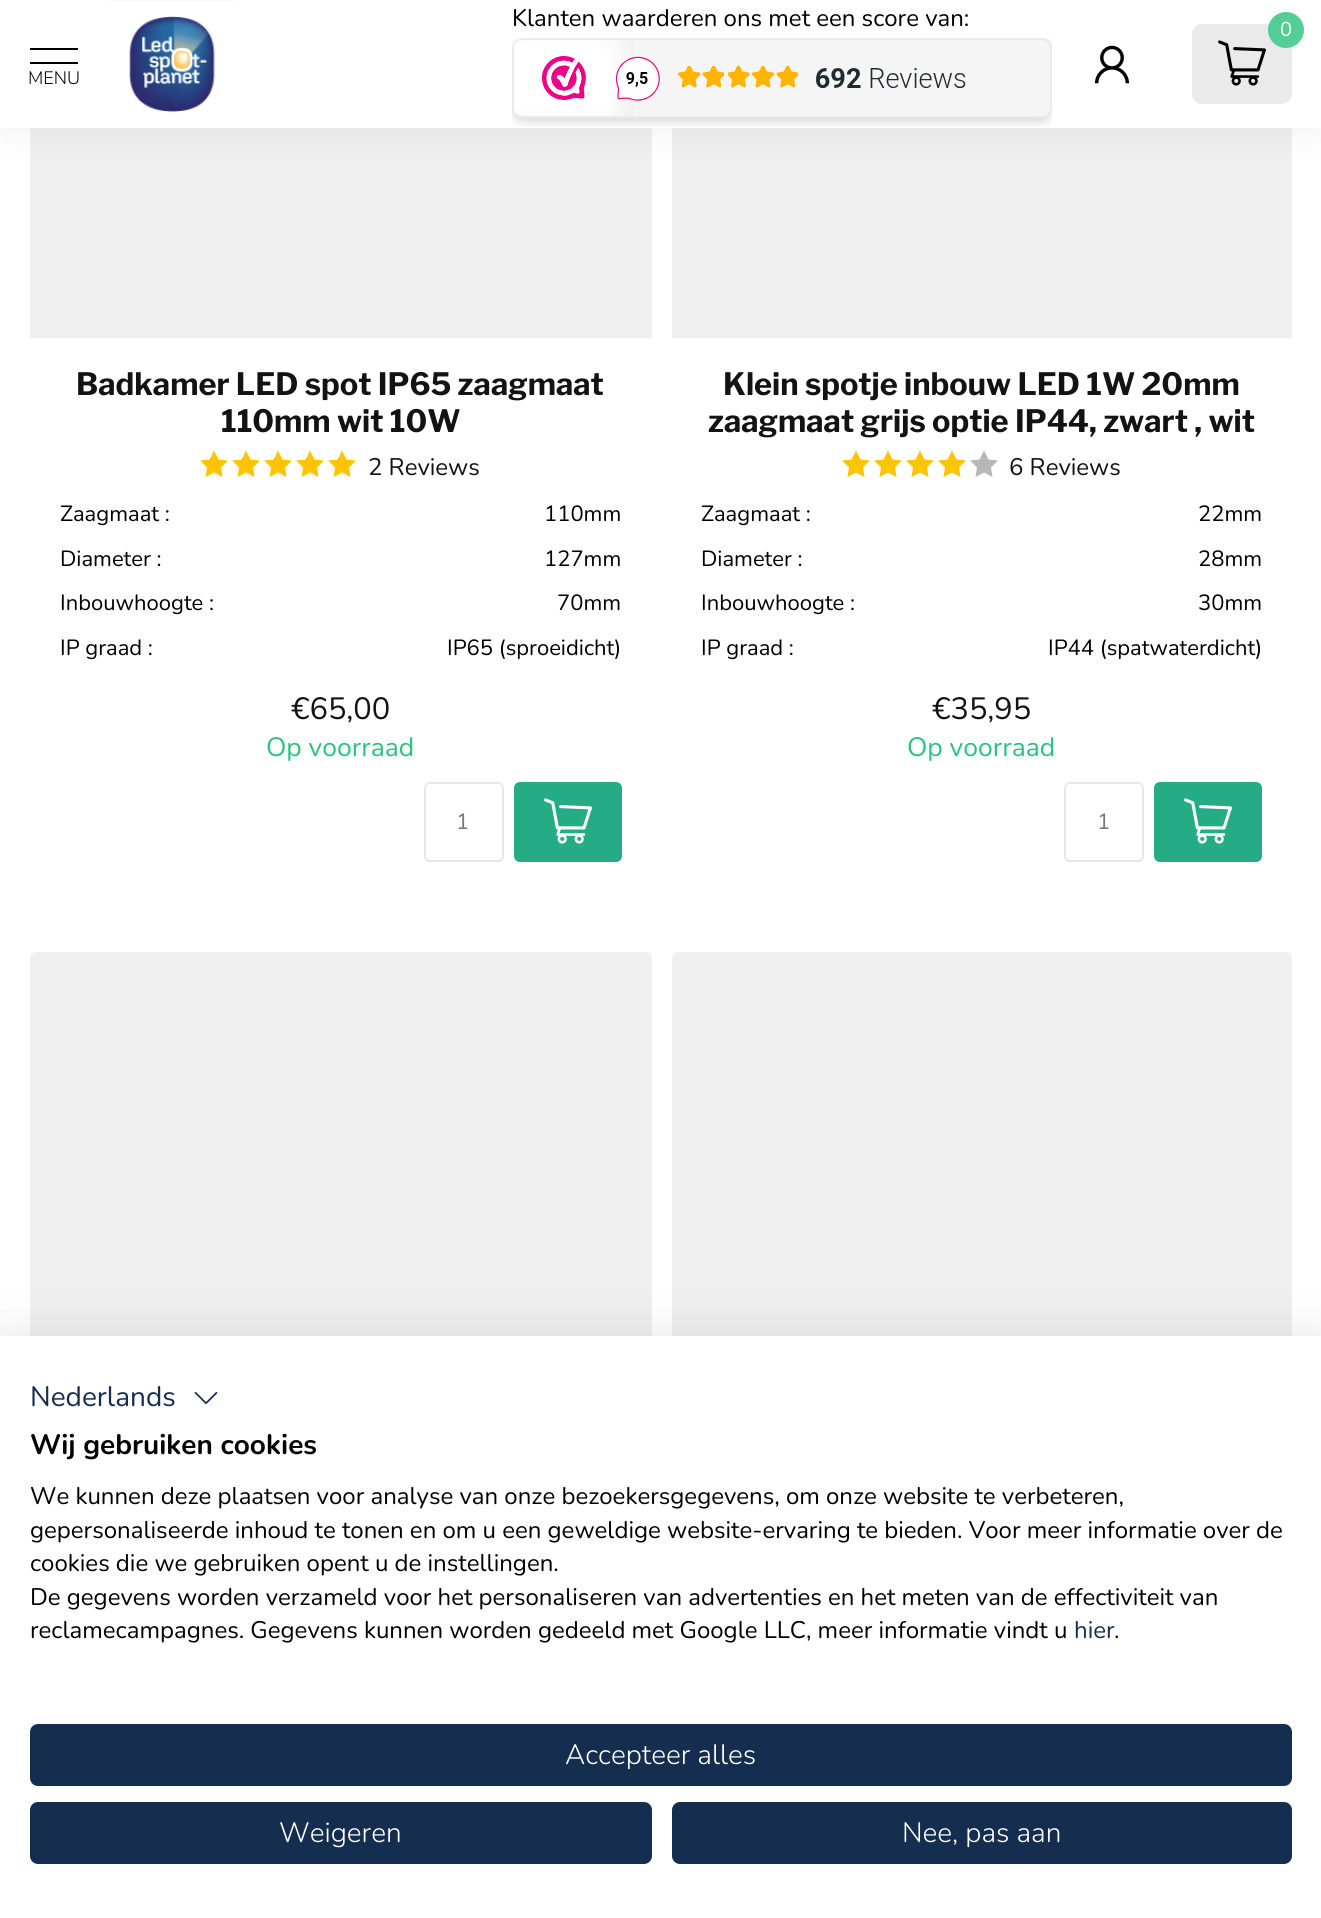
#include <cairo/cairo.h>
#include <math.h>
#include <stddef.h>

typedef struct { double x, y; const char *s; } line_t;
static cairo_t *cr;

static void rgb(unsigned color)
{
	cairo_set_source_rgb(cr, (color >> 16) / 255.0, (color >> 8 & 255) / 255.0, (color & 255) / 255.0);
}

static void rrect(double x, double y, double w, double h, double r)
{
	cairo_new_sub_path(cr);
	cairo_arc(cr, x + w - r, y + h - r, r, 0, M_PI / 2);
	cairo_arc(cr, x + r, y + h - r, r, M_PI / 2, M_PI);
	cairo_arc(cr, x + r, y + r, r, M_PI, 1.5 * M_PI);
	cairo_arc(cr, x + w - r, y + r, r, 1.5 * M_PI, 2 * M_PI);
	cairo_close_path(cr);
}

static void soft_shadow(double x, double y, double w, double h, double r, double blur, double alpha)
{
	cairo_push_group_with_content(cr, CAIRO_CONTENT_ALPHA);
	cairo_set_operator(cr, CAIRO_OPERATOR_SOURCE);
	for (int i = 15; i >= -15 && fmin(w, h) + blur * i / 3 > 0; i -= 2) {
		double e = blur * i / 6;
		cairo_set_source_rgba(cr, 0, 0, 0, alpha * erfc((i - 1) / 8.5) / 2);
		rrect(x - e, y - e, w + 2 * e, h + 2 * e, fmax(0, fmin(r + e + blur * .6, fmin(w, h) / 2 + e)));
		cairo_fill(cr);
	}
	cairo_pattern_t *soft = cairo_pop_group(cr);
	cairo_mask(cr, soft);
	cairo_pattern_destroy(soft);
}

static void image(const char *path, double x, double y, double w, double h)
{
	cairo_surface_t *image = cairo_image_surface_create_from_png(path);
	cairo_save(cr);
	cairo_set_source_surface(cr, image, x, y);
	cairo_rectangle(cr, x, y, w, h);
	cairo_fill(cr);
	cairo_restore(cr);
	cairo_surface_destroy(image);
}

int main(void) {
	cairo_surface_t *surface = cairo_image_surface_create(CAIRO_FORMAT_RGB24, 1321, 1918);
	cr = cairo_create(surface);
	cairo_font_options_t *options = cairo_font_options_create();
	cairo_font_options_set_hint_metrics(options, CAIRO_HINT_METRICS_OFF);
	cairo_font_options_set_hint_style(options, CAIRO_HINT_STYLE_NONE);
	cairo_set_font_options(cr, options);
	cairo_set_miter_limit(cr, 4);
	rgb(0xffffff);
	cairo_paint(cr);
	rgb(0xefefef);
	cairo_rectangle(cr, 30, 128, 622, 210);
	cairo_fill(cr);
	cairo_rectangle(cr, 672, 128, 620, 210);
	cairo_fill(cr);
	rgb(0x000000);
	soft_shadow(0, 0, 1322, 128, 0, 20, 0.07);
	rgb(0xffffff);
	cairo_rectangle(cr, 0, 0, 1321, 128);
	cairo_fill(cr);
	image("img/1.png", 110, 0, 126, 113);
	image("img/2.png", 512, 38, 540, 89);
	rgb(0x000000);
	cairo_rectangle(cr, 30, 48, 48, 2);
	cairo_fill(cr);
	cairo_rectangle(cr, 30, 62, 48, 2);
	cairo_fill(cr);
	rgb(0xeaeaea);
	rrect(1192, 24, 100, 80, 10);
	cairo_fill(cr);
	rgb(0x54ce96);
	cairo_arc(cr, 1286, 30, 18, 0, 2 * M_PI);
	cairo_fill(cr);
	image("img/3.png", 1218, 40, 48, 46);
	image("img/4.png", 1095, 45, 34, 39);
	rgb(0xffc400);
	cairo_new_path(cr);
	cairo_move_to(cr, 214, 450.5);
	cairo_line_to(cr, 218.5, 459.5);
	cairo_line_to(cr, 228, 460.5);
	cairo_line_to(cr, 221, 467.5);
	cairo_line_to(cr, 222.5, 477);
	cairo_line_to(cr, 214, 472.5);
	cairo_line_to(cr, 205.5, 477);
	cairo_line_to(cr, 207, 467.5);
	cairo_line_to(cr, 200, 460.5);
	cairo_line_to(cr, 209.5, 459.5);
	cairo_close_path(cr);
	cairo_move_to(cr, 246, 450.5);
	cairo_line_to(cr, 250.5, 459.5);
	cairo_line_to(cr, 260, 460.5);
	cairo_line_to(cr, 253, 467.5);
	cairo_line_to(cr, 254.5, 477);
	cairo_line_to(cr, 246, 472.5);
	cairo_line_to(cr, 237.5, 477);
	cairo_line_to(cr, 239, 467.5);
	cairo_line_to(cr, 232, 460.5);
	cairo_line_to(cr, 241.5, 459.5);
	cairo_close_path(cr);
	cairo_fill(cr);
	cairo_new_path(cr);
	cairo_move_to(cr, 278, 450.5);
	cairo_line_to(cr, 282.5, 459.5);
	cairo_line_to(cr, 292, 460.5);
	cairo_line_to(cr, 285, 467.5);
	cairo_line_to(cr, 286.5, 477);
	cairo_line_to(cr, 278, 472.5);
	cairo_line_to(cr, 269.5, 477);
	cairo_line_to(cr, 271, 467.5);
	cairo_line_to(cr, 264, 460.5);
	cairo_line_to(cr, 273.5, 459.5);
	cairo_close_path(cr);
	cairo_move_to(cr, 310, 450.5);
	cairo_line_to(cr, 314.5, 459.5);
	cairo_line_to(cr, 324, 460.5);
	cairo_line_to(cr, 317, 467.5);
	cairo_line_to(cr, 318.5, 477);
	cairo_line_to(cr, 310, 472.5);
	cairo_line_to(cr, 301.5, 477);
	cairo_line_to(cr, 303, 467.5);
	cairo_line_to(cr, 296, 460.5);
	cairo_line_to(cr, 305.5, 459.5);
	cairo_close_path(cr);
	cairo_fill(cr);
	cairo_new_path(cr);
	cairo_move_to(cr, 342, 450.5);
	cairo_line_to(cr, 346.5, 459.5);
	cairo_line_to(cr, 356, 460.5);
	cairo_line_to(cr, 349, 467.5);
	cairo_line_to(cr, 350.5, 477);
	cairo_line_to(cr, 342, 472.5);
	cairo_line_to(cr, 333.5, 477);
	cairo_line_to(cr, 335, 467.5);
	cairo_line_to(cr, 328, 460.5);
	cairo_line_to(cr, 337.5, 459.5);
	cairo_close_path(cr);
	cairo_fill(cr);
	rrect(425, 783, 78, 78, 5);
	rgb(0xe7e7e7);
	cairo_stroke(cr);
	rgb(0x25ac85);
	rrect(514, 782, 108, 80, 6);
	cairo_fill(cr);
	image("img/5.png", 544, 798, 48, 46);
	rgb(0xffc400);
	cairo_new_path(cr);
	cairo_move_to(cr, 856, 450.5);
	cairo_line_to(cr, 860.5, 459.5);
	cairo_line_to(cr, 870, 460.5);
	cairo_line_to(cr, 863, 467.5);
	cairo_line_to(cr, 864.5, 477);
	cairo_line_to(cr, 856, 472.5);
	cairo_line_to(cr, 847.5, 477);
	cairo_line_to(cr, 849, 467.5);
	cairo_line_to(cr, 842, 460.5);
	cairo_line_to(cr, 851.5, 459.5);
	cairo_close_path(cr);
	cairo_move_to(cr, 888, 450.5);
	cairo_line_to(cr, 892.5, 459.5);
	cairo_line_to(cr, 902, 460.5);
	cairo_line_to(cr, 895, 467.5);
	cairo_line_to(cr, 896.5, 477);
	cairo_line_to(cr, 888, 472.5);
	cairo_line_to(cr, 879.5, 477);
	cairo_line_to(cr, 881, 467.5);
	cairo_line_to(cr, 874, 460.5);
	cairo_line_to(cr, 883.5, 459.5);
	cairo_close_path(cr);
	cairo_fill(cr);
	cairo_new_path(cr);
	cairo_move_to(cr, 920, 450.5);
	cairo_line_to(cr, 924.5, 459.5);
	cairo_line_to(cr, 934, 460.5);
	cairo_line_to(cr, 927, 467.5);
	cairo_line_to(cr, 928.5, 477);
	cairo_line_to(cr, 920, 472.5);
	cairo_line_to(cr, 911.5, 477);
	cairo_line_to(cr, 913, 467.5);
	cairo_line_to(cr, 906, 460.5);
	cairo_line_to(cr, 915.5, 459.5);
	cairo_close_path(cr);
	cairo_move_to(cr, 952, 450.5);
	cairo_line_to(cr, 956.5, 459.5);
	cairo_line_to(cr, 966, 460.5);
	cairo_line_to(cr, 959, 467.5);
	cairo_line_to(cr, 960.5, 477);
	cairo_line_to(cr, 952, 472.5);
	cairo_line_to(cr, 943.5, 477);
	cairo_line_to(cr, 945, 467.5);
	cairo_line_to(cr, 938, 460.5);
	cairo_line_to(cr, 947.5, 459.5);
	cairo_close_path(cr);
	cairo_fill(cr);
	rgb(0xb7b7b7);
	cairo_new_path(cr);
	cairo_move_to(cr, 984, 450.5);
	cairo_line_to(cr, 988.5, 459.5);
	cairo_line_to(cr, 998, 460.5);
	cairo_line_to(cr, 991, 467.5);
	cairo_line_to(cr, 992.5, 477);
	cairo_line_to(cr, 984, 472.5);
	cairo_line_to(cr, 975.5, 477);
	cairo_line_to(cr, 977, 467.5);
	cairo_line_to(cr, 970, 460.5);
	cairo_line_to(cr, 979.5, 459.5);
	cairo_close_path(cr);
	cairo_fill(cr);
	rrect(1065, 783, 78, 78, 5);
	rgb(0xe7e7e7);
	cairo_stroke(cr);
	rgb(0x25ac85);
	rrect(1154, 782, 108, 80, 6);
	cairo_fill(cr);
	image("img/5.png", 1184, 798, 48, 46);
	rgb(0xf4f4f4);
	cairo_new_path(cr);
	cairo_move_to(cr, 38, 952);
	cairo_line_to(cr, 644, 952);
	cairo_curve_to(cr, 648.5, 952, 652, 955.5, 652, 960);
	cairo_line_to(cr, 652, 1670);
	cairo_line_to(cr, 30, 1670);
	cairo_line_to(cr, 30, 960);
	cairo_curve_to(cr, 30, 955.5, 33.5, 952, 38, 952);
	cairo_close_path(cr);
	cairo_fill(cr);
	cairo_set_source_rgba(cr, 0.608, 0.608, 0.608, 0.06);
	cairo_rectangle(cr, 30, 952, 622, 384);
	cairo_fill(cr);
	rgb(0xf4f4f4);
	cairo_new_path(cr);
	cairo_move_to(cr, 680, 952);
	cairo_line_to(cr, 1284, 952);
	cairo_curve_to(cr, 1288.5, 952, 1292, 955.5, 1292, 960);
	cairo_line_to(cr, 1292, 1670);
	cairo_line_to(cr, 672, 1670);
	cairo_line_to(cr, 672, 960);
	cairo_curve_to(cr, 672, 955.5, 675.5, 952, 680, 952);
	cairo_close_path(cr);
	cairo_fill(cr);
	cairo_set_source_rgba(cr, 0.608, 0.608, 0.608, 0.06);
	cairo_rectangle(cr, 672, 952, 620, 384);
	cairo_fill(cr);
	rgb(0x000000);
	soft_shadow(0, 1336, 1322, 582, 0, 24, 0.1);
	rgb(0xffffff);
	cairo_rectangle(cr, 0, 1336, 1321, 582);
	cairo_fill(cr);
	image("img/6.png", 194, 1391, 24, 13);
	rgb(0x152e4f);
	rrect(31, 1725, 1260, 60, 7);
	cairo_fill_preserve(cr);
	cairo_stroke(cr);
	rrect(31, 1803, 620, 60, 7);
	cairo_fill_preserve(cr);
	cairo_stroke(cr);
	rrect(673, 1803, 618, 60, 7);
	cairo_fill_preserve(cr);
	cairo_stroke(cr);
	cairo_select_font_face(cr, "Nunito", CAIRO_FONT_SLANT_NORMAL, CAIRO_FONT_WEIGHT_NORMAL);
	cairo_set_font_size(cr, 24);
	rgb(0x000000);
	cairo_move_to(cr, 512, 26);
	cairo_show_text(cr, "Klanten waarderen ons met een score van:");
	cairo_select_font_face(cr, "Nunito Light", CAIRO_FONT_SLANT_NORMAL, CAIRO_FONT_WEIGHT_NORMAL);
	cairo_set_font_size(cr, 18);
	cairo_move_to(cr, 28, 84);
	cairo_show_text(cr, "MENU");
	cairo_select_font_face(cr, "Nunito", CAIRO_FONT_SLANT_NORMAL, CAIRO_FONT_WEIGHT_NORMAL);
	cairo_set_font_size(cr, 20);
	rgb(0xffffff);
	cairo_move_to(cr, 1280, 36);
	cairo_show_text(cr, "0");
	cairo_select_font_face(cr, "Libre Franklin", CAIRO_FONT_SLANT_NORMAL, CAIRO_FONT_WEIGHT_BOLD);
	cairo_set_font_size(cr, 30.75);
	rgb(0x131313);
	cairo_move_to(cr, 76, 395);
	cairo_show_text(cr, "Badkamer LED spot IP65 zaagmaat");
	cairo_move_to(cr, 221, 432);
	cairo_show_text(cr, "110mm wit 10W");
	cairo_select_font_face(cr, "Nunito", CAIRO_FONT_SLANT_NORMAL, CAIRO_FONT_WEIGHT_NORMAL);
	cairo_set_font_size(cr, 24);
	cairo_move_to(cr, 368, 475);
	cairo_show_text(cr, "2 Reviews");
	cairo_set_font_size(cr, 22);
	rgb(0x000000);
	{
		static const line_t items[] = {
			{60, 521, "Zaagmaat :"},
			{544, 521, "110mm"},
			{60, 566, "Diameter :"},
			{544, 566, "127mm"},
			{60, 610, "Inbouwhoogte :"},
			{557, 610, "70mm"},
			{60, 655, "IP graad :"},
			{447, 655, "IP65 (sproeidicht)"},
		};
		for (size_t i = 0; i < sizeof items / sizeof *items; i++) {
			cairo_move_to(cr, items[i].x, items[i].y);
			cairo_show_text(cr, items[i].s);
		}
	}
	cairo_set_font_size(cr, 30.75);
	rgb(0x131313);
	cairo_move_to(cr, 291, 719);
	cairo_show_text(cr, "€65,00");
	cairo_set_font_size(cr, 26.5);
	rgb(0x2ac37d);
	cairo_move_to(cr, 266, 756);
	cairo_show_text(cr, "Op voorraad");
	cairo_set_font_size(cr, 22);
	rgb(0x777777);
	cairo_move_to(cr, 456, 829);
	cairo_show_text(cr, "1");
	cairo_select_font_face(cr, "Libre Franklin", CAIRO_FONT_SLANT_NORMAL, CAIRO_FONT_WEIGHT_BOLD);
	cairo_set_font_size(cr, 30.75);
	rgb(0x131313);
	cairo_move_to(cr, 723, 395);
	cairo_show_text(cr, "Klein spotje inbouw LED 1W 20mm");
	cairo_move_to(cr, 708, 432);
	cairo_show_text(cr, "zaagmaat grijs optie IP44, zwart , wit");
	cairo_select_font_face(cr, "Nunito", CAIRO_FONT_SLANT_NORMAL, CAIRO_FONT_WEIGHT_NORMAL);
	cairo_set_font_size(cr, 24);
	cairo_move_to(cr, 1009, 475);
	cairo_show_text(cr, "6 Reviews");
	cairo_set_font_size(cr, 22);
	rgb(0x000000);
	{
		static const line_t items[] = {
			{701, 521, "Zaagmaat :"},
			{1198, 521, "22mm"},
			{701, 566, "Diameter :"},
			{1198, 566, "28mm"},
			{701, 610, "Inbouwhoogte :"},
			{1198, 610, "30mm"},
			{701, 655, "IP graad :"},
			{1048, 655, "IP44 (spatwaterdicht)"},
		};
		for (size_t i = 0; i < sizeof items / sizeof *items; i++) {
			cairo_move_to(cr, items[i].x, items[i].y);
			cairo_show_text(cr, items[i].s);
		}
	}
	cairo_set_font_size(cr, 30.75);
	rgb(0x131313);
	cairo_move_to(cr, 932, 719);
	cairo_show_text(cr, "€35,95");
	cairo_set_font_size(cr, 26.5);
	rgb(0x2ac37d);
	cairo_move_to(cr, 907, 756);
	cairo_show_text(cr, "Op voorraad");
	cairo_set_font_size(cr, 22);
	rgb(0x777777);
	cairo_move_to(cr, 1097, 829);
	cairo_show_text(cr, "1");
	cairo_set_font_size(cr, 28);
	rgb(0x152e4f);
	cairo_move_to(cr, 30, 1406);
	cairo_show_text(cr, "Nederlands");
	cairo_select_font_face(cr, "Nunito", CAIRO_FONT_SLANT_NORMAL, CAIRO_FONT_WEIGHT_BOLD);
	rgb(0x000000);
	cairo_move_to(cr, 30, 1454);
	cairo_show_text(cr, "Wij gebruiken cookies");
	cairo_select_font_face(cr, "Nunito", CAIRO_FONT_SLANT_NORMAL, CAIRO_FONT_WEIGHT_NORMAL);
	cairo_set_font_size(cr, 24);
	{
		static const line_t items[] = {
			{30, 1504, "We kunnen deze plaatsen voor analyse van onze bezoekersgegevens, om onze website te verbeteren,"},
			{30, 1538, "gepersonaliseerde inhoud te tonen en om u een geweldige website-ervaring te bieden. Voor meer informatie over de"},
			{30, 1571, "cookies die we gebruiken opent u de instellingen."},
			{30, 1605, "De gegevens worden verzameld voor het personaliseren van advertenties en het meten van de effectiviteit van"},
			{30, 1638, "reclamecampagnes. Gegevens kunnen worden gedeeld met Google LLC, meer informatie vindt u"},
		};
		for (size_t i = 0; i < sizeof items / sizeof *items; i++) {
			cairo_move_to(cr, items[i].x, items[i].y);
			cairo_show_text(cr, items[i].s);
		}
	}
	rgb(0x152e4f);
	cairo_move_to(cr, 1074, 1638);
	cairo_show_text(cr, "hier");
	rgb(0x000000);
	cairo_move_to(cr, 1114, 1638);
	cairo_show_text(cr, ".");
	cairo_select_font_face(cr, "Nunito Light", CAIRO_FONT_SLANT_NORMAL, CAIRO_FONT_WEIGHT_NORMAL);
	cairo_set_font_size(cr, 28);
	rgb(0xffffff);
	{
		static const line_t items[] = {
			{565, 1764, "Accepteer alles"},
			{279, 1842, "Weigeren"},
			{902, 1842, "Nee, pas aan"},
		};
		for (size_t i = 0; i < sizeof items / sizeof *items; i++) {
			cairo_move_to(cr, items[i].x, items[i].y);
			cairo_show_text(cr, items[i].s);
		}
	}
	cairo_surface_write_to_png(surface, "page.png");
	cairo_font_options_destroy(options);
	cairo_destroy(cr);
	cairo_surface_destroy(surface);
	return 0;
}
